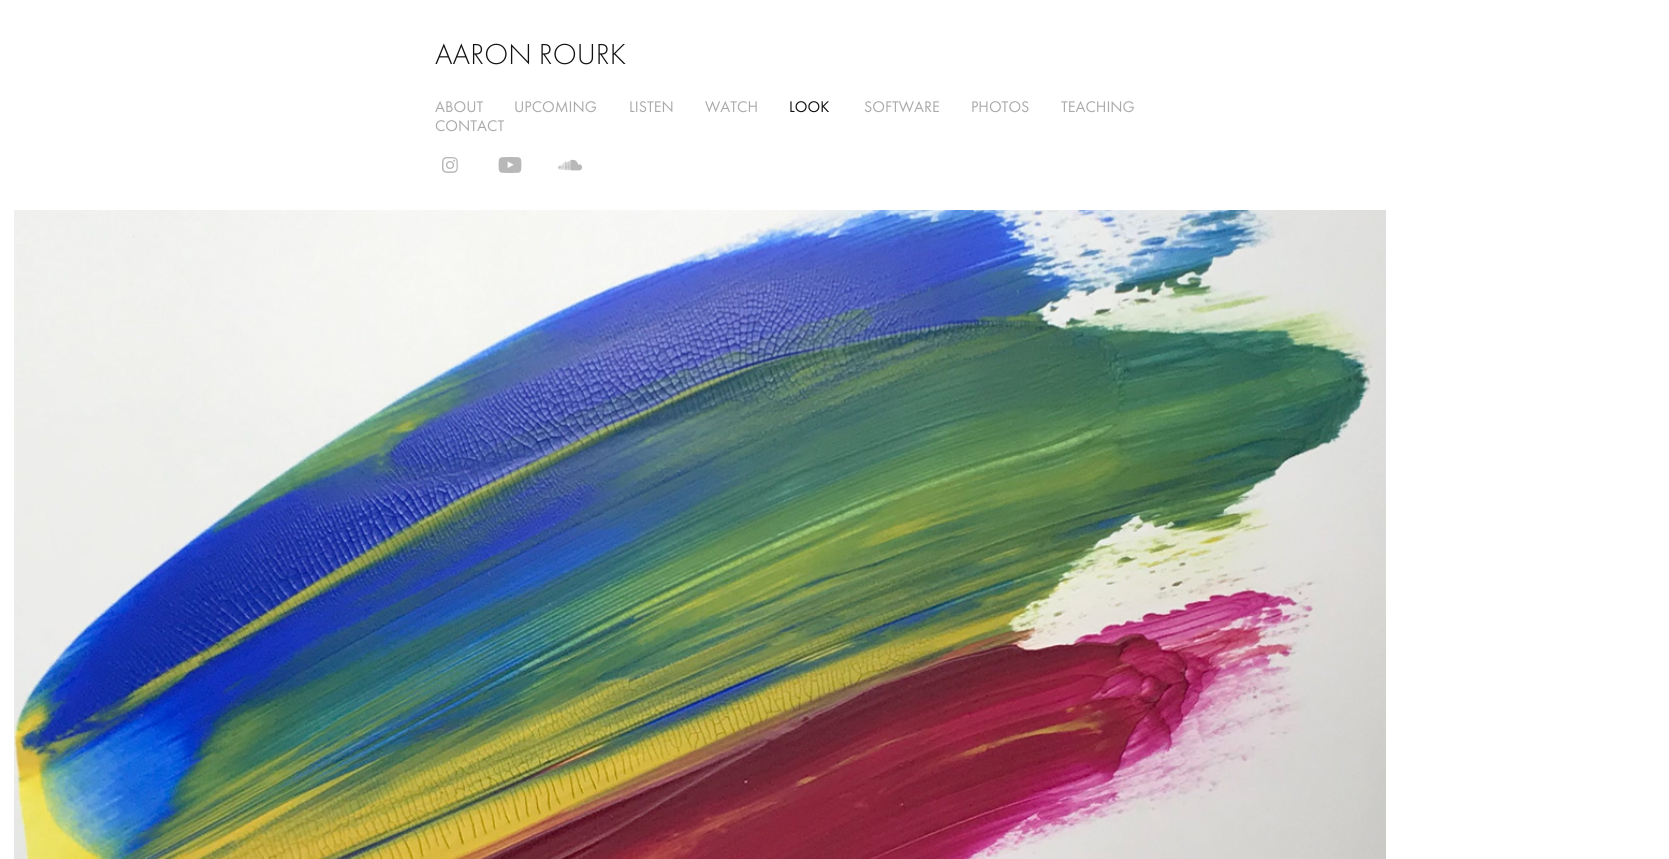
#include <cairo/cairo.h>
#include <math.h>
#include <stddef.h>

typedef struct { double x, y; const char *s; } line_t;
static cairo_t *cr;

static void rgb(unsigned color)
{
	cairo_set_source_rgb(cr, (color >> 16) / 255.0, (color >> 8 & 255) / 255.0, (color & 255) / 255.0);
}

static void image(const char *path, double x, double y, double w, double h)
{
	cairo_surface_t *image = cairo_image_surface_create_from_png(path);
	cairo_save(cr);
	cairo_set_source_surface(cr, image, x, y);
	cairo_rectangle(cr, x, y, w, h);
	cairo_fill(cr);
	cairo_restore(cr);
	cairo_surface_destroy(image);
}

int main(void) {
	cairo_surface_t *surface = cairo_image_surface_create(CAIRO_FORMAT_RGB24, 1669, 859);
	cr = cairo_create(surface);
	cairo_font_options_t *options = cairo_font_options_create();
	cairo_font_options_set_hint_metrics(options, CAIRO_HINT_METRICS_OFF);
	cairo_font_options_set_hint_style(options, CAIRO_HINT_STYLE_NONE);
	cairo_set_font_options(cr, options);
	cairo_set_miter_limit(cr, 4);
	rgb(0xffffff);
	cairo_paint(cr);
	image("img/1.png", 442, 157, 16, 16);
	image("img/2.png", 498, 157, 24, 16);
	image("img/3.png", 557, 159, 25, 12);
	image("img/4.png", 14, 210, 1372, 649);
	cairo_select_font_face(cr, "Futura PT Light", CAIRO_FONT_SLANT_NORMAL, CAIRO_FONT_WEIGHT_NORMAL);
	cairo_set_font_size(cr, 30);
	rgb(0x111111);
	cairo_move_to(cr, 435, 64);
	cairo_show_text(cr, "AARON ROURK");
	cairo_select_font_face(cr, "Futura PT", CAIRO_FONT_SLANT_NORMAL, CAIRO_FONT_WEIGHT_NORMAL);
	cairo_set_font_size(cr, 16);
	rgb(0xaaaaaa);
	{
		static const line_t items[] = {
			{435, 112, "ABOUT"},
			{514, 112, "UPCOMING"},
			{629, 112, "LISTEN"},
			{705, 112, "WATCH"},
		};
		for (size_t i = 0; i < sizeof items / sizeof *items; i++) {
			cairo_move_to(cr, items[i].x, items[i].y);
			cairo_show_text(cr, items[i].s);
		}
	}
	rgb(0x111111);
	cairo_move_to(cr, 789, 112);
	cairo_show_text(cr, "LOOK");
	rgb(0xaaaaaa);
	{
		static const line_t items[] = {
			{864, 112, "SOFTWARE"},
			{971, 112, "PHOTOS"},
			{1061, 112, "TEACHING"},
			{435, 131, "CONTACT"},
		};
		for (size_t i = 0; i < sizeof items / sizeof *items; i++) {
			cairo_move_to(cr, items[i].x, items[i].y);
			cairo_show_text(cr, items[i].s);
		}
	}
	cairo_surface_write_to_png(surface, "page.png");
	cairo_font_options_destroy(options);
	cairo_destroy(cr);
	cairo_surface_destroy(surface);
	return 0;
}
